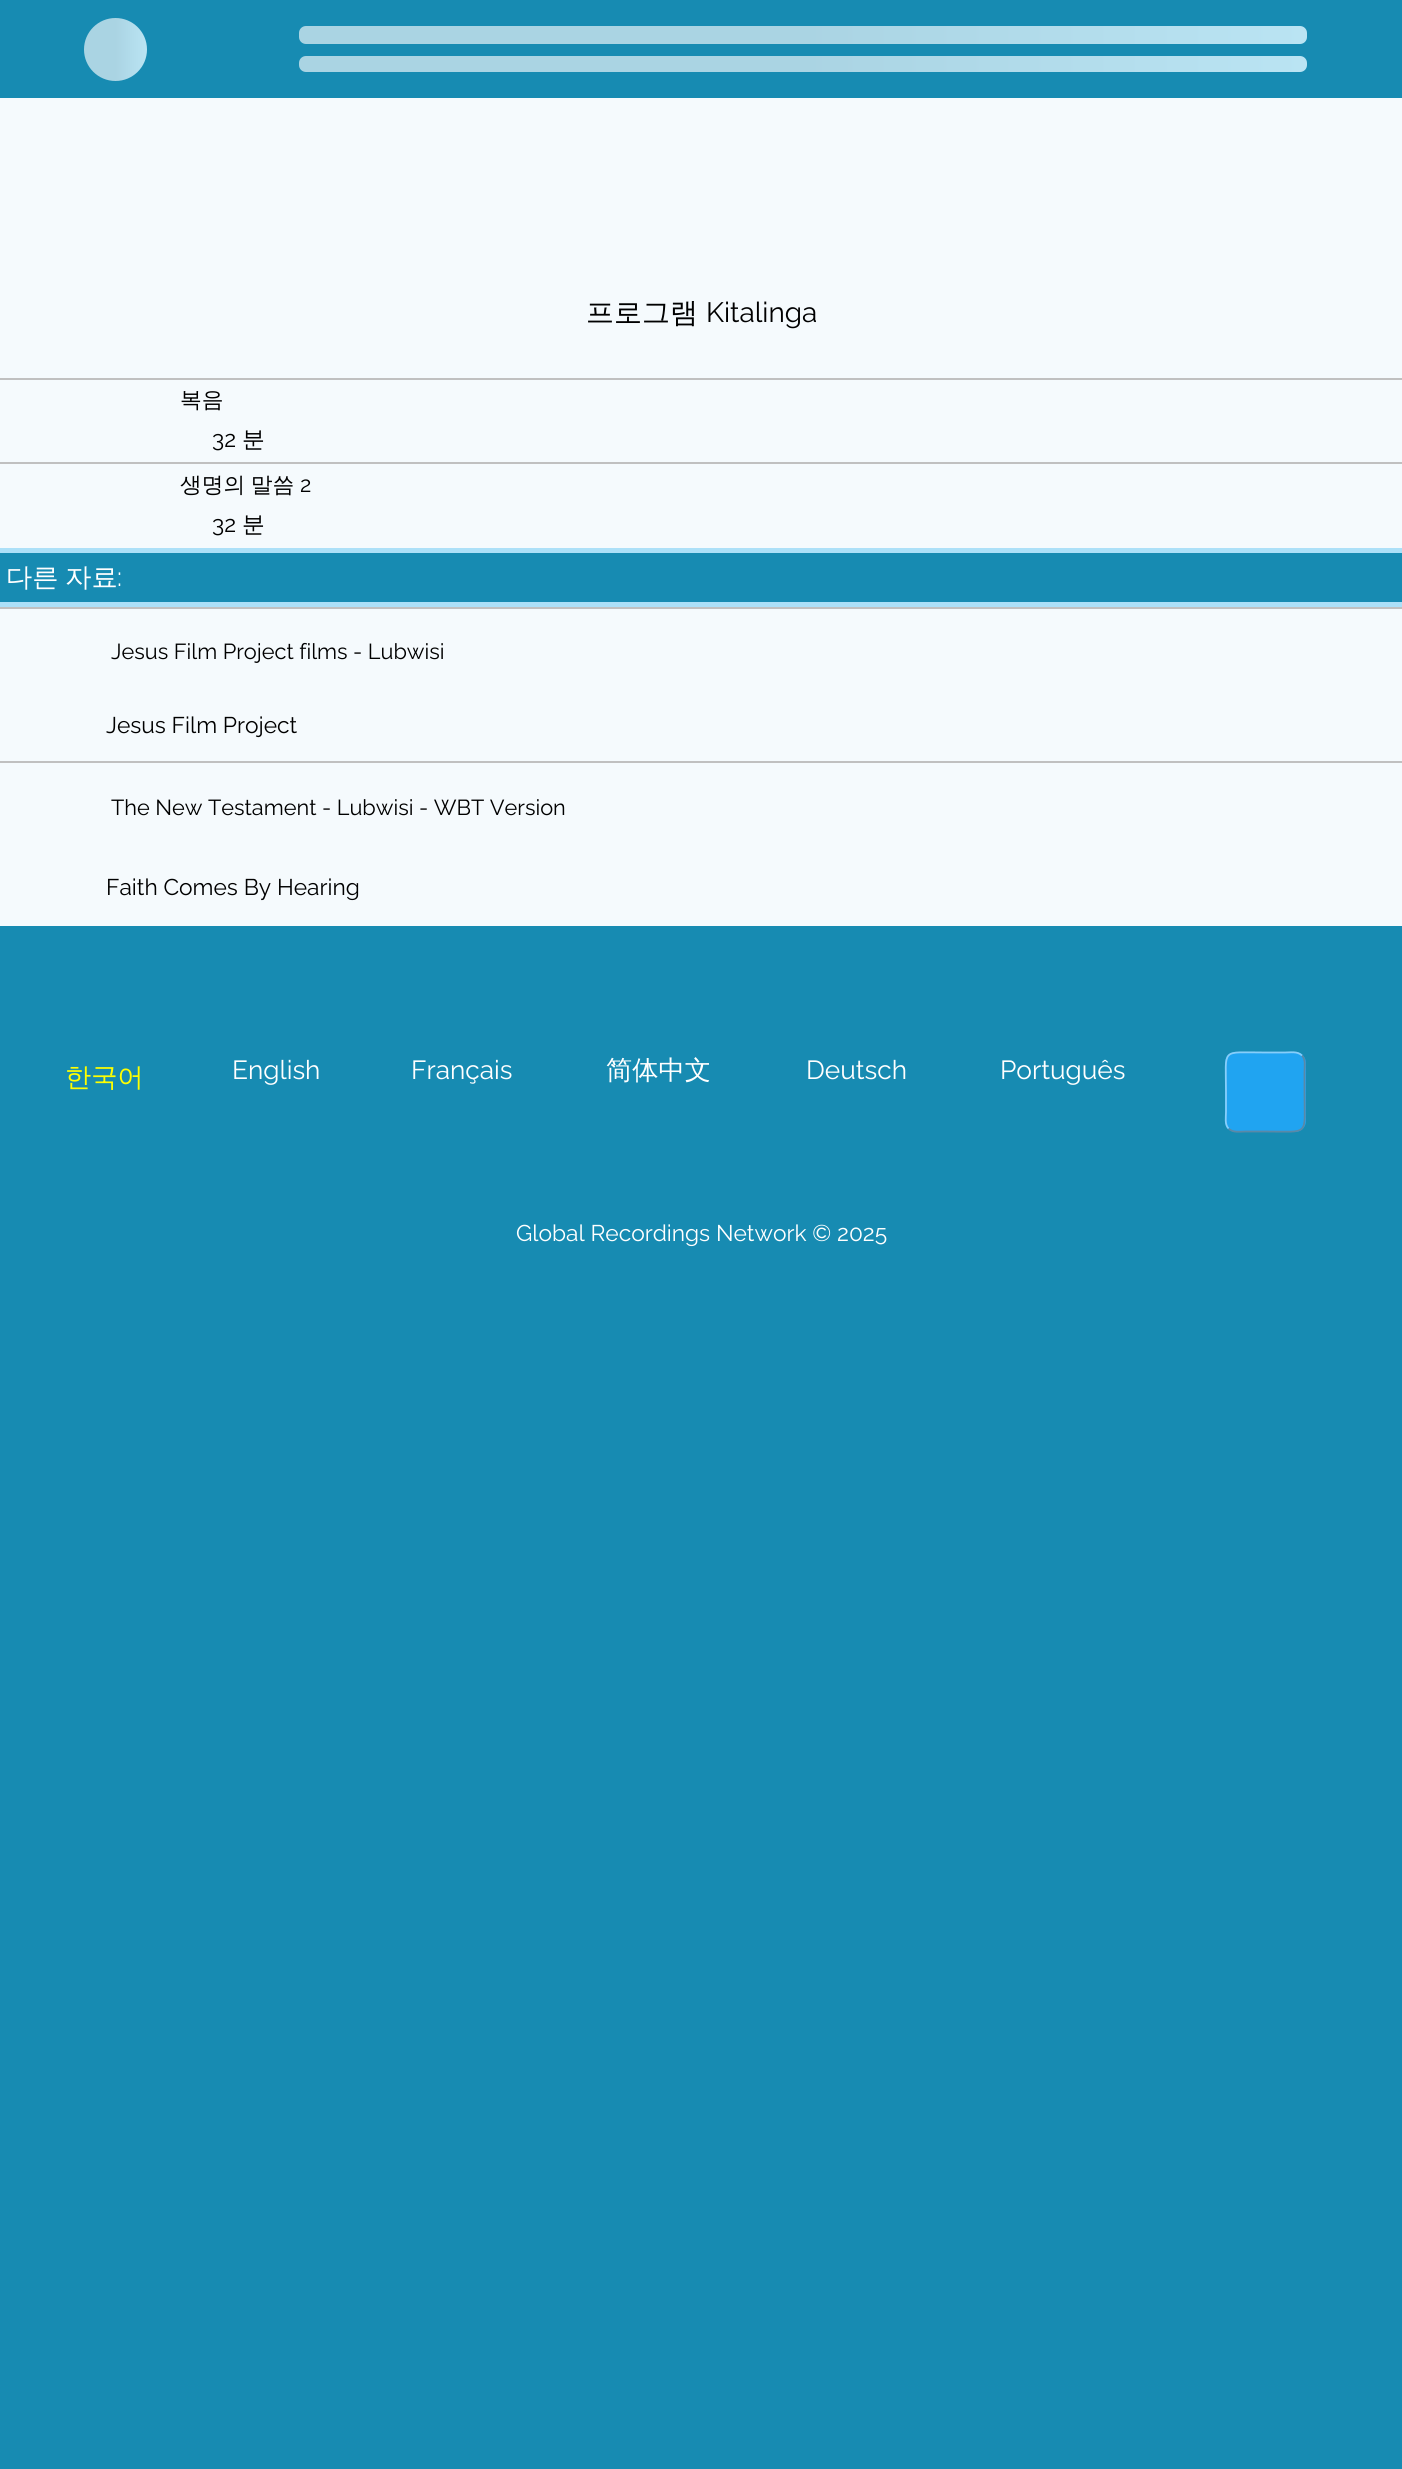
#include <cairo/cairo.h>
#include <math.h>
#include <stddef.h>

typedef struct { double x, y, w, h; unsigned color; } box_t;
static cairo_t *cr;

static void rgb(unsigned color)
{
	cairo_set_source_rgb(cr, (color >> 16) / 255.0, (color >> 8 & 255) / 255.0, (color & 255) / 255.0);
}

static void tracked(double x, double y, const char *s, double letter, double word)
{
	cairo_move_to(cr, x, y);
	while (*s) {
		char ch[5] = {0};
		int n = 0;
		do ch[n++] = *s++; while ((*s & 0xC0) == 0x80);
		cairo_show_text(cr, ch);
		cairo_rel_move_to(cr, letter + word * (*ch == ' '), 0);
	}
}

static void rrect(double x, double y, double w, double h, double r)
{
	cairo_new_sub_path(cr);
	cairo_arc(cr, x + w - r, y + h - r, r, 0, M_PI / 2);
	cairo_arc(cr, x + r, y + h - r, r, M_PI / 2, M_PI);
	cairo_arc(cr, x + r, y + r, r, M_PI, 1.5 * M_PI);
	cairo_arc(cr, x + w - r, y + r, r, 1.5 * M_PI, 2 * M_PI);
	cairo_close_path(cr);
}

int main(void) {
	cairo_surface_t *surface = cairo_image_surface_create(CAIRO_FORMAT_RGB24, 1402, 2469);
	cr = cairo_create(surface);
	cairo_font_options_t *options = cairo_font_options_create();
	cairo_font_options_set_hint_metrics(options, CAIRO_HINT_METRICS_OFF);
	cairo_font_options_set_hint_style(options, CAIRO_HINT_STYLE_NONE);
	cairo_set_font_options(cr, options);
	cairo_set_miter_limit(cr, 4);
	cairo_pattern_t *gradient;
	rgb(0x178bb2);
	cairo_paint(cr);
	gradient = cairo_pattern_create_linear(84, 49, 210, 49);
	cairo_pattern_add_color_stop_rgba(gradient, 0.25, 0.667, 0.831, 0.89, 1);
	cairo_pattern_add_color_stop_rgba(gradient, 0.5, 0.729, 0.894, 0.953, 1);
	cairo_pattern_add_color_stop_rgba(gradient, 0.75, 0.667, 0.831, 0.89, 1);
	cairo_set_source(cr, gradient);
	cairo_pattern_destroy(gradient);
	cairo_arc(cr, 115.5, 49.5, 31.5, 0, 2 * M_PI);
	cairo_fill(cr);
	gradient = cairo_pattern_create_linear(299, 35, 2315, 35);
	cairo_pattern_add_color_stop_rgba(gradient, 0.25, 0.667, 0.831, 0.89, 1);
	cairo_pattern_add_color_stop_rgba(gradient, 0.5, 0.729, 0.894, 0.953, 1);
	cairo_pattern_add_color_stop_rgba(gradient, 0.75, 0.667, 0.831, 0.89, 1);
	cairo_set_source(cr, gradient);
	cairo_pattern_destroy(gradient);
	rrect(299, 26, 1008, 18, 7);
	cairo_fill(cr);
	gradient = cairo_pattern_create_linear(299, 64, 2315, 64);
	cairo_pattern_add_color_stop_rgba(gradient, 0.25, 0.667, 0.831, 0.89, 1);
	cairo_pattern_add_color_stop_rgba(gradient, 0.5, 0.729, 0.894, 0.953, 1);
	cairo_pattern_add_color_stop_rgba(gradient, 0.75, 0.667, 0.831, 0.89, 1);
	cairo_set_source(cr, gradient);
	cairo_pattern_destroy(gradient);
	rrect(299, 56, 1008, 16, 7);
	cairo_fill(cr);
	{
		static const box_t items[] = {
			{0, 98, 1402, 828, 0xf5fafd},
			{0, 378, 1402, 2, 0xc0c0c0},
			{0, 462, 1402, 2, 0xc0c0c0},
			{0, 548, 1402, 5, 0xace0f8},
			{0, 553, 1402, 49, 0x178bb2},
			{0, 602, 1402, 5, 0xace0f8},
			{0, 607, 1402, 2, 0xc0c0c0},
			{0, 761, 1402, 2, 0xc0c0c0},
		};
		for (size_t i = 0; i < sizeof items / sizeof *items; i++) {
			rgb(items[i].color);
			cairo_rectangle(cr, items[i].x, items[i].y, items[i].w, items[i].h);
			cairo_fill(cr);
		}
	}
	rgb(0x20a4f1);
	rrect(1225, 1052, 81, 80, 11);
	cairo_fill(cr);
	cairo_new_path(cr);
	cairo_move_to(cr, 1302, 1055.5);
	cairo_curve_to(cr, 1306, 1059.5, 1304.5, 1067, 1304.5, 1072);
	cairo_line_to(cr, 1304.5, 1092);
	cairo_curve_to(cr, 1304.5, 1137, 1310.5, 1131.5, 1265, 1131.5);
	cairo_line_to(cr, 1245.5, 1131.5);
	cairo_curve_to(cr, 1240, 1131.5, 1233, 1133, 1228.5, 1128.5);
	rgb(0x5a89a7);
	cairo_set_line_width(cr, 1.8);
	cairo_stroke(cr);
	cairo_new_path(cr);
	cairo_move_to(cr, 1228.5, 1128.5);
	cairo_curve_to(cr, 1224.5, 1124.5, 1226, 1117, 1226, 1112);
	cairo_line_to(cr, 1226, 1092);
	cairo_curve_to(cr, 1226, 1047, 1220, 1052.5, 1265, 1052.5);
	cairo_line_to(cr, 1285, 1052.5);
	cairo_curve_to(cr, 1290.5, 1052.5, 1297.5, 1051, 1302, 1055.5);
	rgb(0x87cefa);
	cairo_stroke(cr);
	cairo_select_font_face(cr, "WenQuanYi Zen Hei Medium", CAIRO_FONT_SLANT_NORMAL, CAIRO_FONT_WEIGHT_NORMAL);
	cairo_set_font_size(cr, 28);
	rgb(0x000000);
	cairo_move_to(cr, 586, 322);
	cairo_show_text(cr, "프로그램");
	cairo_select_font_face(cr, "Raleway", CAIRO_FONT_SLANT_NORMAL, CAIRO_FONT_WEIGHT_NORMAL);
	cairo_move_to(cr, 706, 322);
	cairo_show_text(cr, "Kitalinga");
	cairo_select_font_face(cr, "WenQuanYi Zen Hei Medium", CAIRO_FONT_SLANT_NORMAL, CAIRO_FONT_WEIGHT_NORMAL);
	cairo_set_font_size(cr, 21.75);
	cairo_move_to(cr, 180, 407);
	cairo_show_text(cr, "복음");
	cairo_select_font_face(cr, "Raleway", CAIRO_FONT_SLANT_NORMAL, CAIRO_FONT_WEIGHT_NORMAL);
	cairo_set_font_size(cr, 22.75);
	cairo_move_to(cr, 212, 447);
	cairo_show_text(cr, "32");
	cairo_select_font_face(cr, "WenQuanYi Zen Hei Medium", CAIRO_FONT_SLANT_NORMAL, CAIRO_FONT_WEIGHT_NORMAL);
	cairo_move_to(cr, 242, 447);
	cairo_show_text(cr, "분");
	cairo_set_font_size(cr, 21.75);
	tracked(180, 492, "생명의 말씀", 0, -1);
	cairo_select_font_face(cr, "Raleway", CAIRO_FONT_SLANT_NORMAL, CAIRO_FONT_WEIGHT_NORMAL);
	cairo_move_to(cr, 300, 492);
	cairo_show_text(cr, "2");
	cairo_set_font_size(cr, 22.75);
	cairo_move_to(cr, 212, 532);
	cairo_show_text(cr, "32");
	cairo_select_font_face(cr, "WenQuanYi Zen Hei Medium", CAIRO_FONT_SLANT_NORMAL, CAIRO_FONT_WEIGHT_NORMAL);
	cairo_move_to(cr, 242, 532);
	cairo_show_text(cr, "분");
	cairo_set_font_size(cr, 26.25);
	rgb(0xffffff);
	tracked(6, 586, "다른 자료", 0, -1);
	cairo_select_font_face(cr, "Raleway", CAIRO_FONT_SLANT_NORMAL, CAIRO_FONT_WEIGHT_NORMAL);
	cairo_move_to(cr, 117, 586);
	cairo_show_text(cr, ":");
	cairo_set_font_size(cr, 21.75);
	rgb(0x000000);
	cairo_move_to(cr, 111, 659);
	cairo_show_text(cr, "Jesus Film Project films - Lubwisi");
	cairo_set_font_size(cr, 22.75);
	cairo_move_to(cr, 106, 733);
	cairo_show_text(cr, "Jesus Film Project");
	cairo_set_font_size(cr, 21.75);
	cairo_move_to(cr, 111, 815);
	cairo_show_text(cr, "The New Testament - Lubwisi - WBT Version");
	cairo_set_font_size(cr, 22.75);
	cairo_move_to(cr, 106, 895);
	cairo_show_text(cr, "Faith Comes By Hearing");
	cairo_select_font_face(cr, "WenQuanYi Zen Hei Medium", CAIRO_FONT_SLANT_NORMAL, CAIRO_FONT_WEIGHT_NORMAL);
	cairo_set_font_size(cr, 26.25);
	rgb(0xffff00);
	cairo_move_to(cr, 65, 1086);
	cairo_show_text(cr, "한국어");
	cairo_select_font_face(cr, "Raleway", CAIRO_FONT_SLANT_NORMAL, CAIRO_FONT_WEIGHT_NORMAL);
	rgb(0xffffff);
	cairo_move_to(cr, 232, 1079);
	cairo_show_text(cr, "English");
	cairo_move_to(cr, 411, 1079);
	cairo_show_text(cr, "Français");
	cairo_select_font_face(cr, "WenQuanYi Zen Hei Medium", CAIRO_FONT_SLANT_NORMAL, CAIRO_FONT_WEIGHT_NORMAL);
	cairo_move_to(cr, 606, 1079);
	cairo_show_text(cr, "简体中文");
	cairo_select_font_face(cr, "Raleway", CAIRO_FONT_SLANT_NORMAL, CAIRO_FONT_WEIGHT_NORMAL);
	cairo_move_to(cr, 806, 1079);
	cairo_show_text(cr, "Deutsch");
	cairo_move_to(cr, 1000, 1079);
	cairo_show_text(cr, "Português");
	cairo_set_font_size(cr, 22.75);
	cairo_move_to(cr, 516, 1241);
	cairo_show_text(cr, "Global Recordings Network © 2025");
	cairo_surface_write_to_png(surface, "page.png");
	cairo_font_options_destroy(options);
	cairo_destroy(cr);
	cairo_surface_destroy(surface);
	return 0;
}
